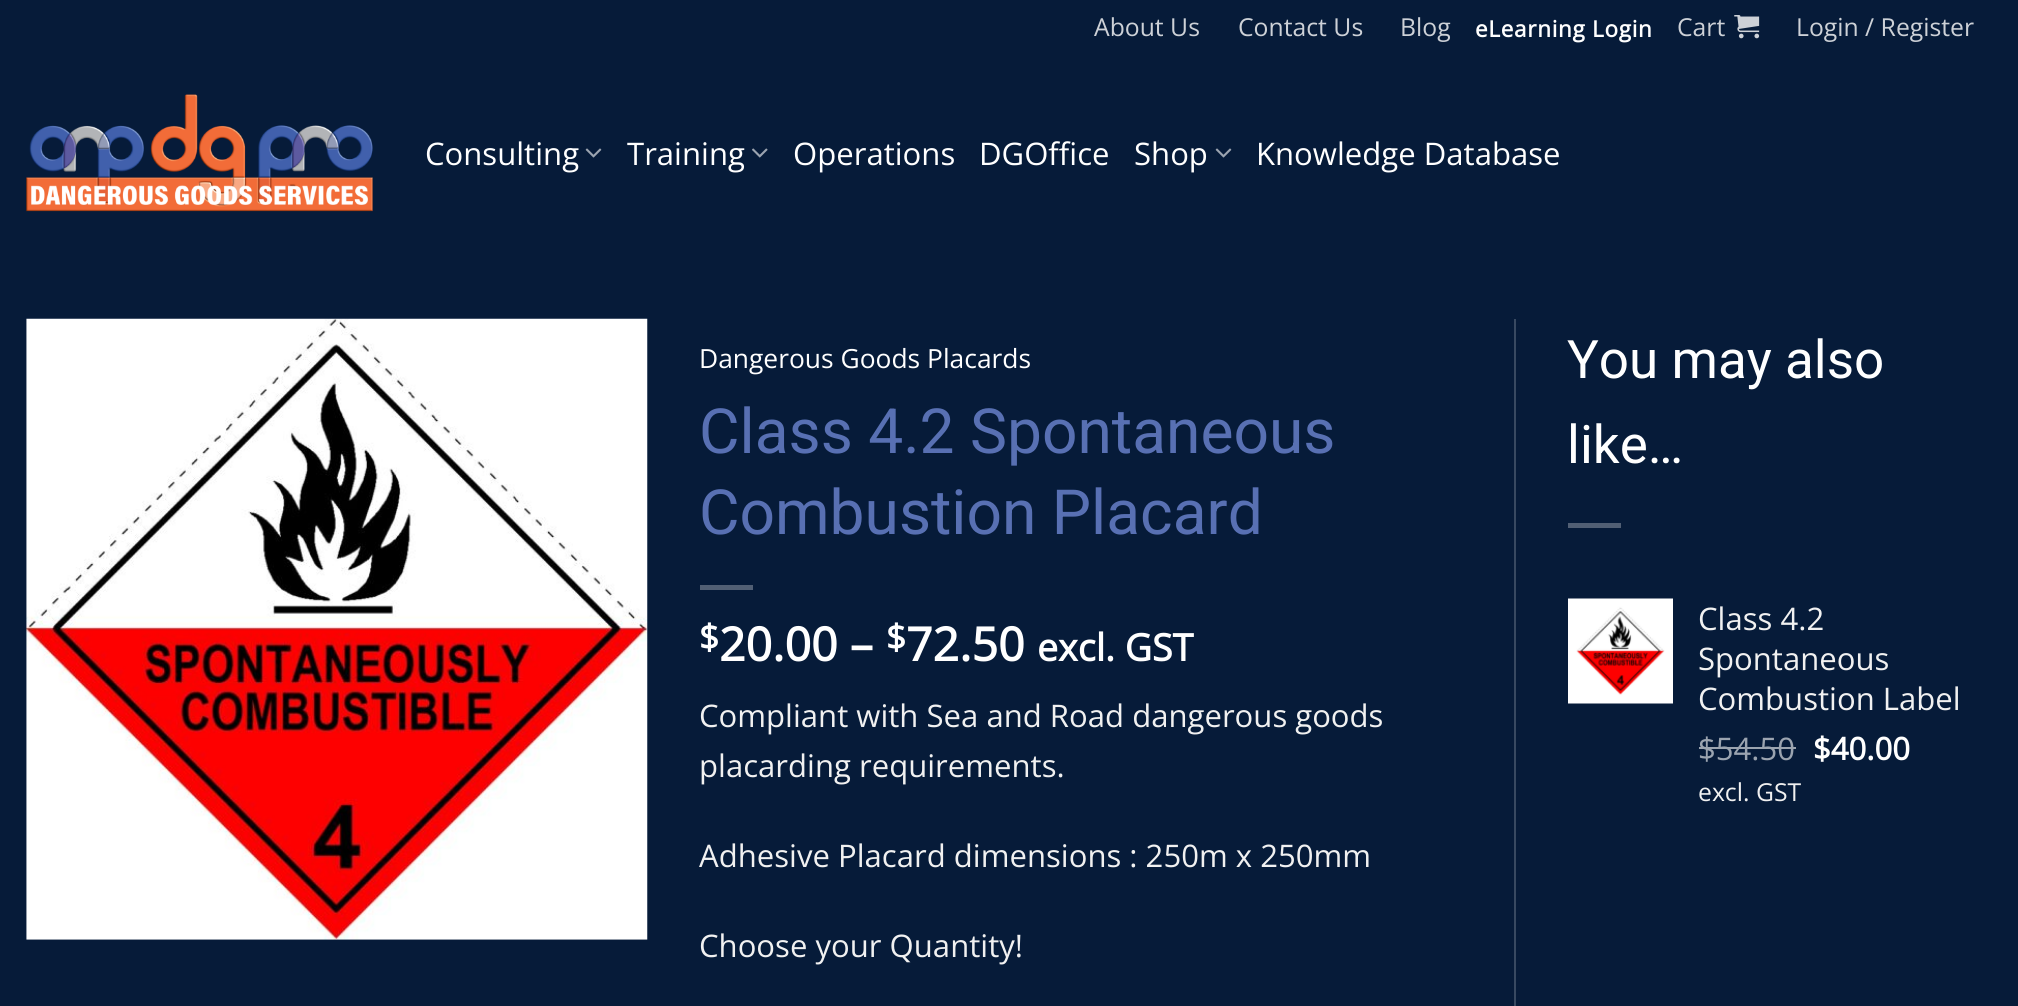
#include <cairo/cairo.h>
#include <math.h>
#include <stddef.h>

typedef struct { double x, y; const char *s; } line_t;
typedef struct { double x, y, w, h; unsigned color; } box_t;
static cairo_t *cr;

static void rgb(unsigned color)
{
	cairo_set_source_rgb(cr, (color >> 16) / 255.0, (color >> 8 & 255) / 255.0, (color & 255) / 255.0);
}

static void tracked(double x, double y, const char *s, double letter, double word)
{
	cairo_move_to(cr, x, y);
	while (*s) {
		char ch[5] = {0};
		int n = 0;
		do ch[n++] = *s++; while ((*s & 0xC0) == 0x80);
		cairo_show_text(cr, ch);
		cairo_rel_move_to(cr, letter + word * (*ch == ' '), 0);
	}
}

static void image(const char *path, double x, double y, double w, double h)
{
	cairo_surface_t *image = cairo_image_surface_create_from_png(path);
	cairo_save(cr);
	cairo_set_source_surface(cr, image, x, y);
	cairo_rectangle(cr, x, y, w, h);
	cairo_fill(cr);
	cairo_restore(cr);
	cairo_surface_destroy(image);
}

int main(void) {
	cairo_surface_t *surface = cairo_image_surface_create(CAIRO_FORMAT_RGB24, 2018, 1006);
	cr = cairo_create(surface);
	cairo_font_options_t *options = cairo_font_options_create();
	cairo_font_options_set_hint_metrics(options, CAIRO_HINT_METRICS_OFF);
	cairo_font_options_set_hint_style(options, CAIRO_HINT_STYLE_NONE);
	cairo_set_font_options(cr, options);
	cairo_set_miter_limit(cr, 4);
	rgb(0x061b39);
	cairo_paint(cr);
	image("img/1.png", 1734, 15, 26, 24);
	image("img/2.png", 26, 94, 347, 118);
	image("img/3.png", 585, 148, 17, 10);
	image("img/4.png", 752, 148, 16, 10);
	image("img/3.png", 1215, 148, 17, 10);
	image("img/5.png", 26, 318, 622, 622);
	{
		static const box_t items[] = {
			{1514, 319, 2, 687, 0x384961},
			{700, 585, 53, 5, 0x515f74},
			{1568, 523, 53, 5, 0x515f74},
		};
		for (size_t i = 0; i < sizeof items / sizeof *items; i++) {
			rgb(items[i].color);
			cairo_rectangle(cr, items[i].x, items[i].y, items[i].w, items[i].h);
			cairo_fill(cr);
		}
	}
	image("img/6.png", 1568, 598, 105, 106);
	rgb(0x9ba4b0);
	cairo_rectangle(cr, 1699, 747, 97, 2);
	cairo_fill(cr);
	cairo_select_font_face(cr, "Open Sans", CAIRO_FONT_SLANT_NORMAL, CAIRO_FONT_WEIGHT_NORMAL);
	cairo_set_font_size(cr, 24.75);
	rgb(0xcdd1d7);
	{
		static const line_t items[] = {
			{1094, 36, "About Us"},
			{1238, 36, "Contact Us"},
			{1400, 36, "Blog"},
		};
		for (size_t i = 0; i < sizeof items / sizeof *items; i++) {
			cairo_move_to(cr, items[i].x, items[i].y);
			cairo_show_text(cr, items[i].s);
		}
	}
	cairo_select_font_face(cr, "Open Sans", CAIRO_FONT_SLANT_NORMAL, CAIRO_FONT_WEIGHT_BOLD);
	cairo_set_font_size(cr, 22.5);
	rgb(0xffffff);
	tracked(1475, 37, "eLearning Login", 0.7, 0);
	cairo_select_font_face(cr, "Open Sans", CAIRO_FONT_SLANT_NORMAL, CAIRO_FONT_WEIGHT_NORMAL);
	cairo_set_font_size(cr, 24.75);
	rgb(0xcdd1d7);
	cairo_move_to(cr, 1677, 36);
	cairo_show_text(cr, "Cart");
	cairo_move_to(cr, 1796, 36);
	cairo_show_text(cr, "Login / Register");
	cairo_set_font_size(cr, 31.1);
	rgb(0xffffff);
	{
		static const line_t items[] = {
			{425, 165, "Consulting"},
			{627, 165, "Training"},
			{793, 165, "Operations"},
			{979, 165, "DGOffice"},
			{1134, 165, "Shop"},
			{1256, 165, "Knowledge Database"},
		};
		for (size_t i = 0; i < sizeof items / sizeof *items; i++) {
			cairo_move_to(cr, items[i].x, items[i].y);
			cairo_show_text(cr, items[i].s);
		}
	}
	cairo_set_font_size(cr, 26.4);
	cairo_move_to(cr, 699, 368);
	cairo_show_text(cr, "Dangerous Goods Placards");
	cairo_select_font_face(cr, "Roboto", CAIRO_FONT_SLANT_NORMAL, CAIRO_FONT_WEIGHT_NORMAL);
	cairo_set_font_size(cr, 62.25);
	rgb(0x5870b3);
	cairo_move_to(cr, 699, 453);
	cairo_show_text(cr, "Class 4.2 Spontaneous");
	cairo_move_to(cr, 699, 534);
	cairo_show_text(cr, "Combustion Placard");
	cairo_select_font_face(cr, "Open Sans", CAIRO_FONT_SLANT_NORMAL, CAIRO_FONT_WEIGHT_BOLD);
	cairo_set_font_size(cr, 35);
	rgb(0xffffff);
	cairo_move_to(cr, 699, 650);
	cairo_show_text(cr, "$");
	cairo_set_font_size(cr, 46.5);
	cairo_move_to(cr, 719, 661);
	cairo_show_text(cr, "20.00 –");
	cairo_set_font_size(cr, 35);
	cairo_move_to(cr, 886, 650);
	cairo_show_text(cr, "$");
	cairo_set_font_size(cr, 46.5);
	cairo_move_to(cr, 906, 661);
	cairo_show_text(cr, "72.50");
	cairo_set_font_size(cr, 37.5);
	cairo_move_to(cr, 1037, 661);
	cairo_show_text(cr, "excl. GST");
	cairo_select_font_face(cr, "Open Sans", CAIRO_FONT_SLANT_NORMAL, CAIRO_FONT_WEIGHT_NORMAL);
	cairo_set_font_size(cr, 31.1);
	rgb(0xf1f1f1);
	{
		static const line_t items[] = {
			{699, 727, "Compliant with Sea and Road dangerous goods"},
			{699, 777, "placarding requirements."},
			{699, 867, "Adhesive Placard dimensions : 250m x 250mm"},
			{699, 957, "Choose your Quantity!"},
		};
		for (size_t i = 0; i < sizeof items / sizeof *items; i++) {
			cairo_move_to(cr, items[i].x, items[i].y);
			cairo_show_text(cr, items[i].s);
		}
	}
	cairo_select_font_face(cr, "Roboto", CAIRO_FONT_SLANT_NORMAL, CAIRO_FONT_WEIGHT_NORMAL);
	cairo_set_font_size(cr, 53);
	rgb(0xffffff);
	cairo_move_to(cr, 1567, 378);
	cairo_show_text(cr, "You may also");
	cairo_move_to(cr, 1567, 463);
	cairo_show_text(cr, "like…");
	cairo_select_font_face(cr, "Open Sans", CAIRO_FONT_SLANT_NORMAL, CAIRO_FONT_WEIGHT_NORMAL);
	cairo_set_font_size(cr, 31.1);
	rgb(0xf1f1f1);
	{
		static const line_t items[] = {
			{1698, 630, "Class 4.2"},
			{1698, 670, "Spontaneous"},
			{1698, 710, "Combustion Label"},
		};
		for (size_t i = 0; i < sizeof items / sizeof *items; i++) {
			cairo_move_to(cr, items[i].x, items[i].y);
			cairo_show_text(cr, items[i].s);
		}
	}
	rgb(0x9ba4b0);
	cairo_move_to(cr, 1698, 760);
	cairo_show_text(cr, "$54.50");
	cairo_select_font_face(cr, "Open Sans", CAIRO_FONT_SLANT_NORMAL, CAIRO_FONT_WEIGHT_BOLD);
	rgb(0xffffff);
	cairo_move_to(cr, 1813, 760);
	cairo_show_text(cr, "$40.00");
	cairo_select_font_face(cr, "Open Sans", CAIRO_FONT_SLANT_NORMAL, CAIRO_FONT_WEIGHT_NORMAL);
	cairo_set_font_size(cr, 24.75);
	rgb(0xf1f1f1);
	cairo_move_to(cr, 1698, 801);
	cairo_show_text(cr, "excl. GST");
	cairo_surface_write_to_png(surface, "page.png");
	cairo_font_options_destroy(options);
	cairo_destroy(cr);
	cairo_surface_destroy(surface);
	return 0;
}
